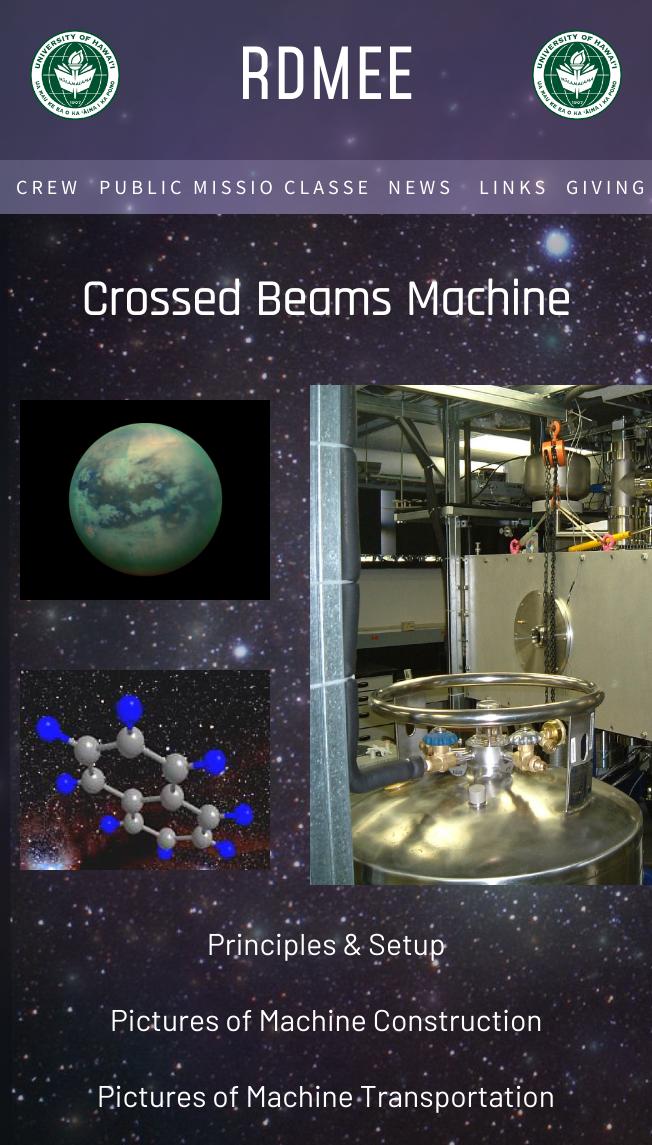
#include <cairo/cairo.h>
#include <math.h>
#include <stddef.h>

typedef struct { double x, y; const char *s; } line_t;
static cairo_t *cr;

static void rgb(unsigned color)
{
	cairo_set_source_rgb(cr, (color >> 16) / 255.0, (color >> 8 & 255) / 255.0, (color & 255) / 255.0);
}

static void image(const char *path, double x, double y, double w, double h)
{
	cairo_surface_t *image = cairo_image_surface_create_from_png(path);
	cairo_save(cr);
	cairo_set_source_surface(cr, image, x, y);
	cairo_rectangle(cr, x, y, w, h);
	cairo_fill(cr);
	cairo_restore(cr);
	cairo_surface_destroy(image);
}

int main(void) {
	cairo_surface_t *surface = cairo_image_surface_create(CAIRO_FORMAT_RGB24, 652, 1145);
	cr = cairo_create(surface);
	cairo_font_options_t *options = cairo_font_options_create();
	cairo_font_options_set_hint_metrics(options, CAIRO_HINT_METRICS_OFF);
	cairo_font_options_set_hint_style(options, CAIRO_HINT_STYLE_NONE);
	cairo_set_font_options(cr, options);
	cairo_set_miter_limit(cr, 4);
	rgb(0xffffff);
	cairo_paint(cr);
	image("img/1.png", 0, 0, 652, 1145);
	cairo_set_source_rgba(cr, 0.322, 0.294, 0.447, 0.5);
	cairo_rectangle(cr, 0, 0, 652, 160);
	cairo_fill(cr);
	image("img/2.png", 30, 30, 90, 90);
	image("img/3.png", 532, 30, 90, 90);
	cairo_set_source_rgba(cr, 0.545, 0.518, 0.682, 0.5);
	cairo_rectangle(cr, 0, 160, 652, 54);
	cairo_fill(cr);
	image("img/4.png", 0, 214, 652, 931);
	image("img/5.png", 20, 400, 250, 200);
	image("img/6.png", 20, 670, 250, 200);
	image("img/7.png", 310, 385, 342, 500);
	cairo_select_font_face(cr, "Mohave", CAIRO_FONT_SLANT_NORMAL, CAIRO_FONT_WEIGHT_NORMAL);
	cairo_set_font_size(cr, 70);
	rgb(0xffffff);
	cairo_move_to(cr, 237, 99);
	cairo_show_text(cr, "RDMEE");
	cairo_select_font_face(cr, "Source Sans Pro", CAIRO_FONT_SLANT_NORMAL, CAIRO_FONT_WEIGHT_NORMAL);
	cairo_set_font_size(cr, 20);
	{
		static const line_t items[] = {
			{16, 194, "C R E W"},
			{99, 194, "P U B L I C"},
			{193, 194, "M I S S I O"},
			{284, 194, "C L A S S E"},
			{388, 194, "N E W S"},
			{479, 194, "L I N K S"},
			{566, 194, "G I V I N G"},
		};
		for (size_t i = 0; i < sizeof items / sizeof *items; i++) {
			cairo_move_to(cr, items[i].x, items[i].y);
			cairo_show_text(cr, items[i].s);
		}
	}
	cairo_select_font_face(cr, "Rajdhani", CAIRO_FONT_SLANT_NORMAL, CAIRO_FONT_WEIGHT_BOLD);
	cairo_set_font_size(cr, 50);
	cairo_move_to(cr, 81, 315);
	cairo_show_text(cr, "Crossed Beams Machine");
	cairo_select_font_face(cr, "Barlow", CAIRO_FONT_SLANT_NORMAL, CAIRO_FONT_WEIGHT_NORMAL);
	cairo_set_font_size(cr, 30);
	{
		static const line_t items[] = {
			{207, 955, "Principles & Setup"},
			{110, 1031, "Pictures of Machine Construction"},
			{97, 1107, "Pictures of Machine Transportation"},
		};
		for (size_t i = 0; i < sizeof items / sizeof *items; i++) {
			cairo_move_to(cr, items[i].x, items[i].y);
			cairo_show_text(cr, items[i].s);
		}
	}
	cairo_surface_write_to_png(surface, "page.png");
	cairo_font_options_destroy(options);
	cairo_destroy(cr);
	cairo_surface_destroy(surface);
	return 0;
}
